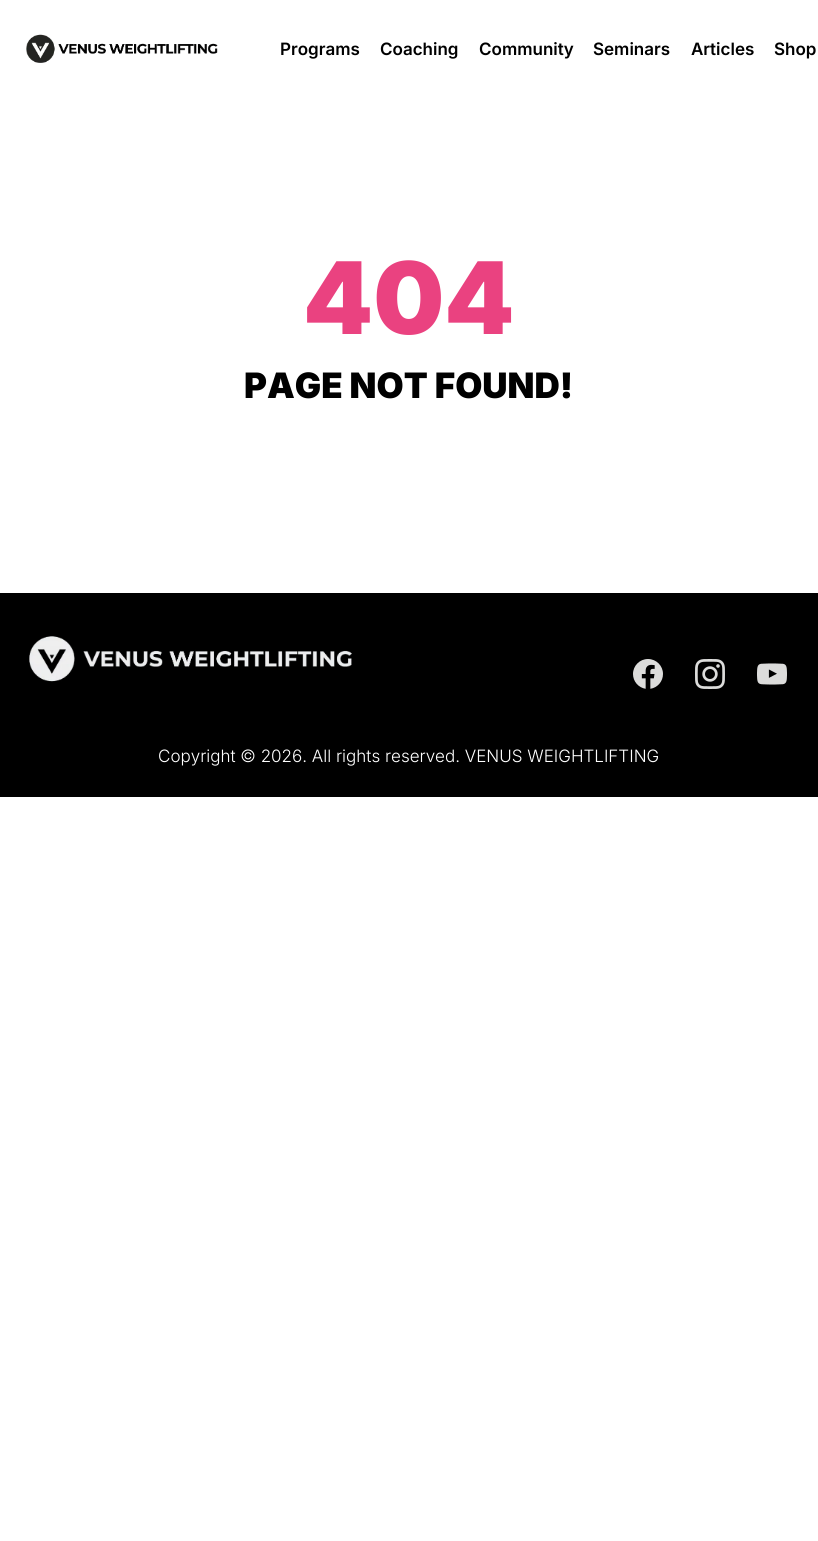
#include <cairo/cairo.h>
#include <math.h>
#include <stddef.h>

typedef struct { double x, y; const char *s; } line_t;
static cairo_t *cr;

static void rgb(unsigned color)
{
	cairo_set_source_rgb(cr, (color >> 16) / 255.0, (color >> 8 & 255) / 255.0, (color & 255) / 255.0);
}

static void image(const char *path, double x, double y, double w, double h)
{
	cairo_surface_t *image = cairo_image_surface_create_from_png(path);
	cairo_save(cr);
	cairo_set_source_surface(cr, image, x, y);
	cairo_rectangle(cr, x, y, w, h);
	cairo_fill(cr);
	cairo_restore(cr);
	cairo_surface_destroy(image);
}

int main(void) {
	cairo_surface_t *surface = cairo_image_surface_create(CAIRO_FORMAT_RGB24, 818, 1541);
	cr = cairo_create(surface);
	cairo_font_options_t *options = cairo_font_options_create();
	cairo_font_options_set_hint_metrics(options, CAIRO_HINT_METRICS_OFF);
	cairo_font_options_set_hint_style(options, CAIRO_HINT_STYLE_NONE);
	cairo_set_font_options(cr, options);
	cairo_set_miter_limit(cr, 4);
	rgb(0xffffff);
	cairo_paint(cr);
	image("img/1.png", 26, 34, 192, 29);
	rgb(0x000000);
	cairo_rectangle(cr, 0, 593, 818, 204);
	cairo_fill(cr);
	image("img/2.png", 29, 636, 323, 46);
	image("img/3.png", 633, 659, 30, 30);
	image("img/4.png", 695, 659, 30, 30);
	image("img/5.png", 757, 663, 30, 22);
	cairo_select_font_face(cr, "Inter SemiBold", CAIRO_FONT_SLANT_NORMAL, CAIRO_FONT_WEIGHT_NORMAL);
	cairo_set_font_size(cr, 17);
	{
		static const line_t items[] = {
			{280, 55, "Programs"},
			{380, 55, "Coaching"},
			{479, 55, "Community"},
			{593, 55, "Seminars"},
			{691, 55, "Articles"},
			{774, 55, "Shop"},
		};
		for (size_t i = 0; i < sizeof items / sizeof *items; i++) {
			cairo_move_to(cr, items[i].x, items[i].y);
			cairo_show_text(cr, items[i].s);
		}
	}
	cairo_select_font_face(cr, "Inter Black", CAIRO_FONT_SLANT_NORMAL, CAIRO_FONT_WEIGHT_NORMAL);
	cairo_set_font_size(cr, 100);
	rgb(0xea4280);
	cairo_move_to(cr, 303, 334);
	cairo_show_text(cr, "404");
	cairo_set_font_size(cr, 35);
	rgb(0x000000);
	cairo_move_to(cr, 244, 398);
	cairo_show_text(cr, "PAGE NOT FOUND!");
	cairo_select_font_face(cr, "Inter Light", CAIRO_FONT_SLANT_NORMAL, CAIRO_FONT_WEIGHT_NORMAL);
	cairo_set_font_size(cr, 17);
	rgb(0xffffff);
	cairo_move_to(cr, 158, 762);
	cairo_show_text(cr, "Copyright © 2026. All rights reserved. VENUS WEIGHTLIFTING");
	cairo_surface_write_to_png(surface, "page.png");
	cairo_font_options_destroy(options);
	cairo_destroy(cr);
	cairo_surface_destroy(surface);
	return 0;
}
